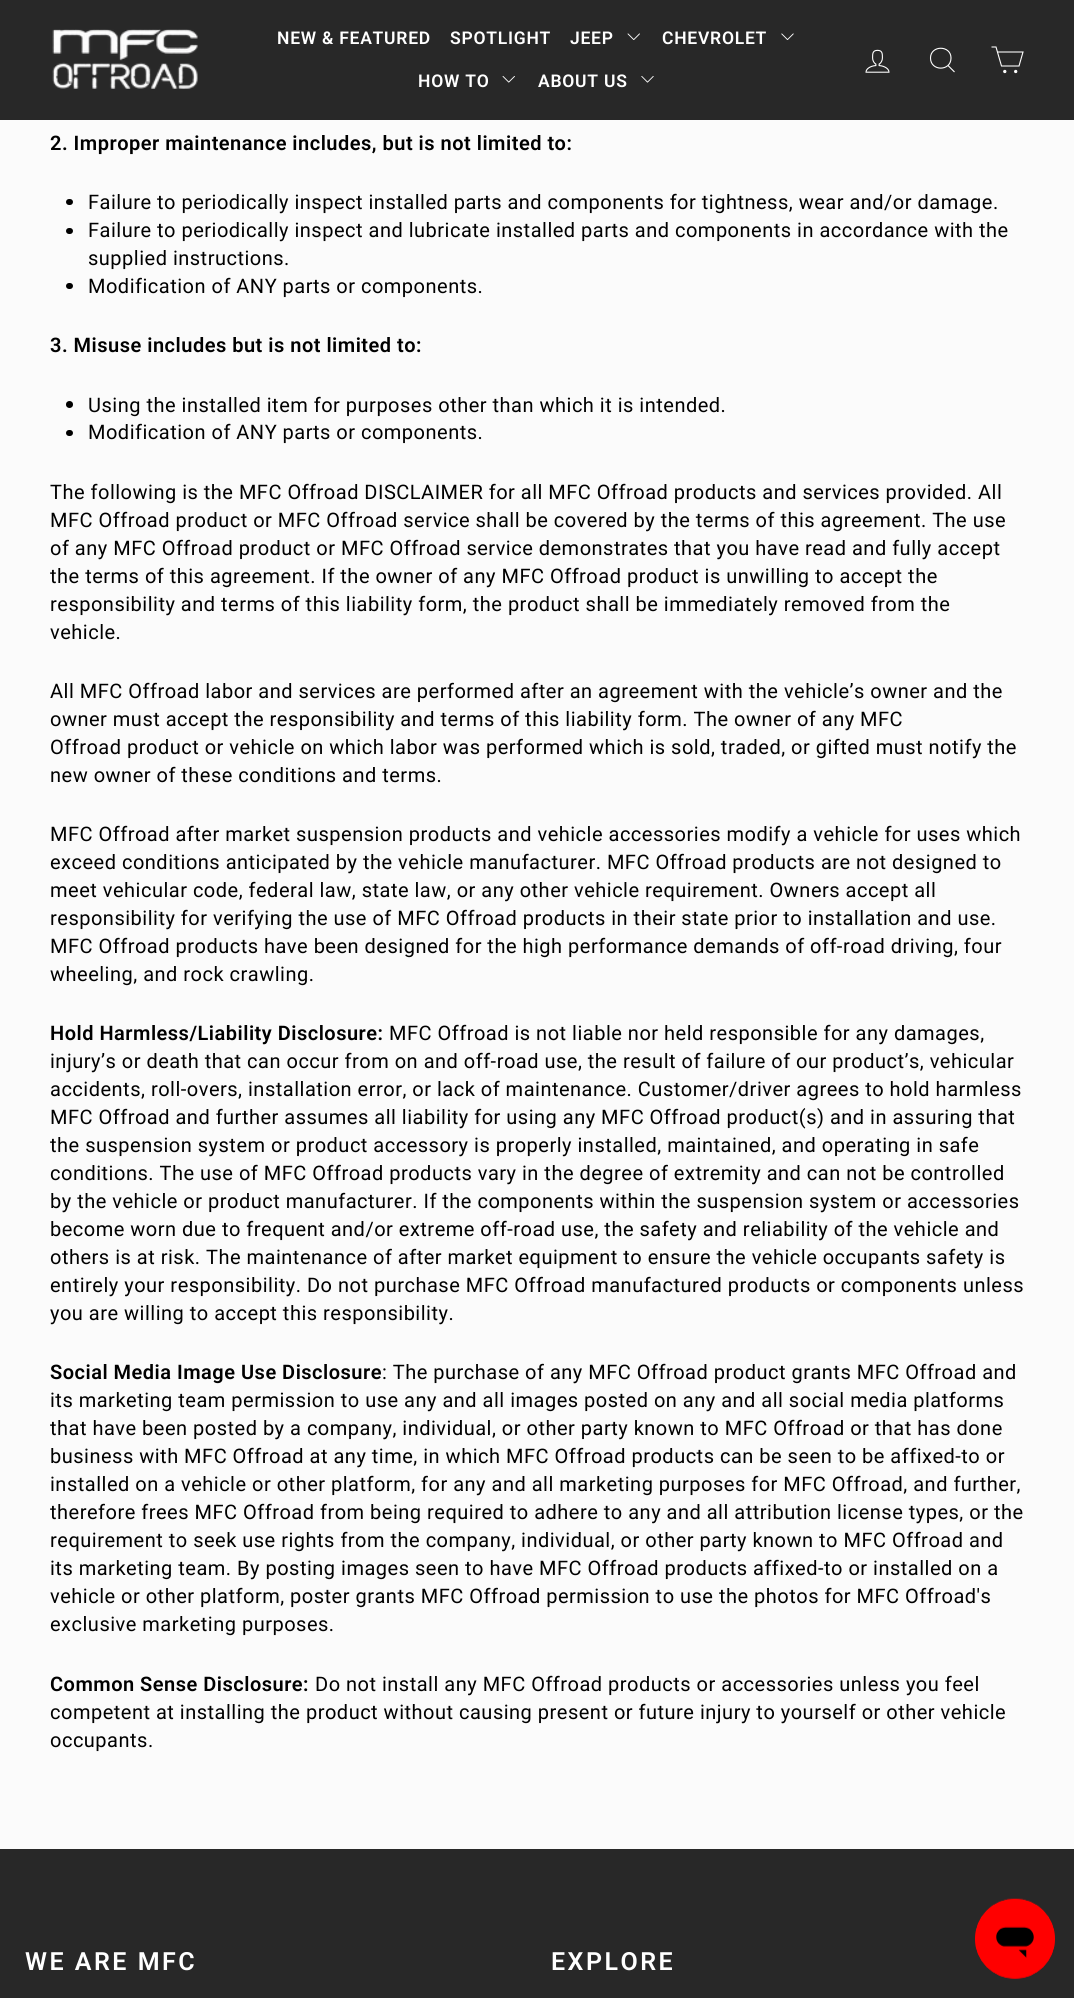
#include <cairo/cairo.h>
#include <math.h>
#include <stddef.h>

typedef struct { double x, y; const char *s; } line_t;
static cairo_t *cr;

static void rgb(unsigned color)
{
	cairo_set_source_rgb(cr, (color >> 16) / 255.0, (color >> 8 & 255) / 255.0, (color & 255) / 255.0);
}

static void tracked(double x, double y, const char *s, double letter, double word)
{
	cairo_move_to(cr, x, y);
	while (*s) {
		char ch[5] = {0};
		int n = 0;
		do ch[n++] = *s++; while ((*s & 0xC0) == 0x80);
		cairo_show_text(cr, ch);
		cairo_rel_move_to(cr, letter + word * (*ch == ' '), 0);
	}
}

static void rrect(double x, double y, double w, double h, double r)
{
	cairo_new_sub_path(cr);
	cairo_arc(cr, x + w - r, y + h - r, r, 0, M_PI / 2);
	cairo_arc(cr, x + r, y + h - r, r, M_PI / 2, M_PI);
	cairo_arc(cr, x + r, y + r, r, M_PI, 1.5 * M_PI);
	cairo_arc(cr, x + w - r, y + r, r, 1.5 * M_PI, 2 * M_PI);
	cairo_close_path(cr);
}

static void image(const char *path, double x, double y, double w, double h)
{
	cairo_surface_t *image = cairo_image_surface_create_from_png(path);
	cairo_save(cr);
	cairo_set_source_surface(cr, image, x, y);
	cairo_rectangle(cr, x, y, w, h);
	cairo_fill(cr);
	cairo_restore(cr);
	cairo_surface_destroy(image);
}

int main(void) {
	cairo_surface_t *surface = cairo_image_surface_create(CAIRO_FORMAT_RGB24, 1074, 1998);
	cr = cairo_create(surface);
	cairo_font_options_t *options = cairo_font_options_create();
	cairo_font_options_set_hint_metrics(options, CAIRO_HINT_METRICS_OFF);
	cairo_font_options_set_hint_style(options, CAIRO_HINT_STYLE_NONE);
	cairo_set_font_options(cr, options);
	cairo_set_miter_limit(cr, 4);
	rgb(0xfbfbfb);
	cairo_paint(cr);
	rgb(0x282828);
	cairo_rectangle(cr, 0, 0, 1074, 120);
	cairo_fill(cr);
	image("img/1.png", 52, 29, 146, 60);
	image("img/2.png", 627, 33, 13, 7);
	image("img/3.png", 781, 33, 13, 7);
	image("img/4.png", 502, 76, 13, 7);
	image("img/5.png", 641, 76, 13, 7);
	image("img/6.png", 865, 49, 25, 24);
	cairo_new_path(cr);
	cairo_move_to(cr, 951, 58);
	cairo_curve_to(cr, 951, 71.5, 930.5, 71.5, 930.5, 58);
	cairo_curve_to(cr, 930.5, 45, 951, 45, 951, 58);
	cairo_close_path(cr);
	cairo_move_to(cr, 954.5, 72);
	cairo_line_to(cr, 948, 65.5);
	rgb(0xffffff);
	cairo_set_line_width(cr, 1.1);
	cairo_stroke(cr);
	cairo_new_path(cr);
	cairo_move_to(cr, 997.5, 52);
	cairo_line_to(cr, 1023, 52);
	cairo_line_to(cr, 1019, 66);
	cairo_line_to(cr, 1001.5, 66);
	cairo_line_to(cr, 996, 47);
	cairo_line_to(cr, 991.5, 47);
	cairo_stroke(cr);
	cairo_arc(cr, 1004.8, 71.5, 1.1, 0, 2 * M_PI);
	cairo_fill_preserve(cr);
	cairo_stroke(cr);
	cairo_arc(cr, 1015.7, 71.5, 1.1, 0, 2 * M_PI);
	cairo_fill_preserve(cr);
	cairo_stroke(cr);
	rgb(0x000000);
	rrect(66, 199, 7, 6, 3);
	cairo_fill(cr);
	rrect(66, 228, 7, 6, 3);
	cairo_fill(cr);
	rrect(66, 283, 7, 6, 3);
	cairo_fill(cr);
	cairo_arc(cr, 69.5, 404.5, 3.5, 0, 2 * M_PI);
	cairo_fill(cr);
	rrect(66, 430, 7, 6, 3);
	cairo_fill(cr);
	rgb(0x282828);
	cairo_rectangle(cr, 0, 1849, 1074, 149);
	cairo_fill(cr);
	image("img/7.png", 975, 1898, 80, 81);
	cairo_select_font_face(cr, "roboto SemiBold", CAIRO_FONT_SLANT_NORMAL, CAIRO_FONT_WEIGHT_NORMAL);
	cairo_set_font_size(cr, 17.5);
	rgb(0xffffff);
	{
		static const line_t items[] = {
			{277, 44, "NEW & FEATURED"},
			{450, 44, "SPOTLIGHT"},
			{570, 44, "JEEP"},
			{662, 44, "CHEVROLET"},
			{418, 87, "HOW TO"},
			{538, 87, "ABOUT US"},
		};
		for (size_t i = 0; i < sizeof items / sizeof *items; i++) {
			tracked(items[i].x, items[i].y, items[i].s, 0.75, 0);
		}
	}
	cairo_set_font_size(cr, 20);
	rgb(0x000000);
	tracked(50, 150, "2. Improper maintenance includes, but is not limited to:", 0.5, 0);
	cairo_select_font_face(cr, "Roboto", CAIRO_FONT_SLANT_NORMAL, CAIRO_FONT_WEIGHT_NORMAL);
	{
		static const line_t items[] = {
			{88, 209, "Failure to periodically inspect installed parts and components for tightness, wear and/or damage."},
			{88, 237, "Failure to periodically inspect and lubricate installed parts and components in accordance with the"},
			{88, 265, "supplied instructions."},
			{88, 293, "Modification of ANY parts or components."},
		};
		for (size_t i = 0; i < sizeof items / sizeof *items; i++) {
			tracked(items[i].x, items[i].y, items[i].s, 0.5, 0);
		}
	}
	cairo_select_font_face(cr, "roboto SemiBold", CAIRO_FONT_SLANT_NORMAL, CAIRO_FONT_WEIGHT_NORMAL);
	tracked(50, 352, "3. Misuse includes but is not limited to:", 0.5, 0);
	cairo_select_font_face(cr, "Roboto", CAIRO_FONT_SLANT_NORMAL, CAIRO_FONT_WEIGHT_NORMAL);
	{
		static const line_t items[] = {
			{88, 412, "Using the installed item for purposes other than which it is intended."},
			{88, 439, "Modification of ANY parts or components."},
			{50, 499, "The following is the MFC Offroad DISCLAIMER for all MFC Offroad products and services provided. All"},
			{50, 527, "MFC Offroad product or MFC Offroad service shall be covered by the terms of this agreement. The use"},
			{50, 555, "of any MFC Offroad product or MFC Offroad service demonstrates that you have read and fully accept"},
			{50, 583, "the terms of this agreement. If the owner of any MFC Offroad product is unwilling to accept the"},
			{50, 611, "responsibility and terms of this liability form, the product shall be immediately removed from the"},
			{50, 639, "vehicle."},
			{50, 698, "All MFC Offroad labor and services are performed after an agreement with the vehicle’s owner and the"},
			{50, 726, "owner must accept the responsibility and terms of this liability form. The owner of any MFC"},
			{50, 754, "Offroad product or vehicle on which labor was performed which is sold, traded, or gifted must notify the"},
			{50, 782, "new owner of these conditions and terms."},
			{50, 841, "MFC Offroad after market suspension products and vehicle accessories modify a vehicle for uses which"},
			{50, 869, "exceed conditions anticipated by the vehicle manufacturer. MFC Offroad products are not designed to"},
			{50, 897, "meet vehicular code, federal law, state law, or any other vehicle requirement. Owners accept all"},
			{50, 925, "responsibility for verifying the use of MFC Offroad products in their state prior to installation and use."},
			{50, 953, "MFC Offroad products have been designed for the high performance demands of off-road driving, four"},
			{50, 981, "wheeling, and rock crawling."},
		};
		for (size_t i = 0; i < sizeof items / sizeof *items; i++) {
			tracked(items[i].x, items[i].y, items[i].s, 0.5, 0);
		}
	}
	cairo_select_font_face(cr, "roboto SemiBold", CAIRO_FONT_SLANT_NORMAL, CAIRO_FONT_WEIGHT_NORMAL);
	tracked(50, 1040, "Hold Harmless/Liability Disclosure:", 0.5, 0);
	cairo_select_font_face(cr, "Roboto", CAIRO_FONT_SLANT_NORMAL, CAIRO_FONT_WEIGHT_NORMAL);
	{
		static const line_t items[] = {
			{389, 1040, "MFC Offroad is not liable nor held responsible for any damages,"},
			{50, 1068, "injury’s or death that can occur from on and off-road use, the result of failure of our product’s, vehicular"},
			{50, 1096, "accidents, roll-overs, installation error, or lack of maintenance. Customer/driver agrees to hold harmless"},
			{50, 1124, "MFC Offroad and further assumes all liability for using any MFC Offroad product(s) and in assuring that"},
			{50, 1152, "the suspension system or product accessory is properly installed, maintained, and operating in safe"},
			{50, 1180, "conditions. The use of MFC Offroad products vary in the degree of extremity and can not be controlled"},
			{50, 1208, "by the vehicle or product manufacturer. If the components within the suspension system or accessories"},
			{50, 1236, "become worn due to frequent and/or extreme off-road use, the safety and reliability of the vehicle and"},
			{50, 1264, "others is at risk. The maintenance of after market equipment to ensure the vehicle occupants safety is"},
			{50, 1292, "entirely your responsibility. Do not purchase MFC Offroad manufactured products or components unless"},
			{50, 1320, "you are willing to accept this responsibility."},
		};
		for (size_t i = 0; i < sizeof items / sizeof *items; i++) {
			tracked(items[i].x, items[i].y, items[i].s, 0.5, 0);
		}
	}
	cairo_select_font_face(cr, "roboto SemiBold", CAIRO_FONT_SLANT_NORMAL, CAIRO_FONT_WEIGHT_NORMAL);
	tracked(50, 1379, "Social Media Image Use Disclosure", 0.5, 0);
	cairo_select_font_face(cr, "Roboto", CAIRO_FONT_SLANT_NORMAL, CAIRO_FONT_WEIGHT_NORMAL);
	{
		static const line_t items[] = {
			{382, 1379, ": The purchase of any MFC Offroad product grants MFC Offroad and"},
			{50, 1407, "its marketing team permission to use any and all images posted on any and all social media platforms"},
			{50, 1435, "that have been posted by a company, individual, or other party known to MFC Offroad or that has done"},
			{50, 1463, "business with MFC Offroad at any time, in which MFC Offroad products can be seen to be affixed-to or"},
			{50, 1491, "installed on a vehicle or other platform, for any and all marketing purposes for MFC Offroad, and further,"},
			{50, 1519, "therefore frees MFC Offroad from being required to adhere to any and all attribution license types, or the"},
			{50, 1547, "requirement to seek use rights from the company, individual, or other party known to MFC Offroad and"},
			{50, 1575, "its marketing team. By posting images seen to have MFC Offroad products affixed-to or installed on a"},
			{50, 1603, "vehicle or other platform, poster grants MFC Offroad permission to use the photos for MFC Offroad's"},
			{50, 1631, "exclusive marketing purposes."},
		};
		for (size_t i = 0; i < sizeof items / sizeof *items; i++) {
			tracked(items[i].x, items[i].y, items[i].s, 0.5, 0);
		}
	}
	cairo_select_font_face(cr, "roboto SemiBold", CAIRO_FONT_SLANT_NORMAL, CAIRO_FONT_WEIGHT_NORMAL);
	tracked(50, 1691, "Common Sense Disclosure:", 0.5, 0);
	cairo_select_font_face(cr, "Roboto", CAIRO_FONT_SLANT_NORMAL, CAIRO_FONT_WEIGHT_NORMAL);
	{
		static const line_t items[] = {
			{315, 1691, "Do not install any MFC Offroad products or accessories unless you feel"},
			{50, 1719, "competent at installing the product without causing present or future injury to yourself or other vehicle"},
			{50, 1747, "occupants."},
		};
		for (size_t i = 0; i < sizeof items / sizeof *items; i++) {
			tracked(items[i].x, items[i].y, items[i].s, 0.5, 0);
		}
	}
	cairo_select_font_face(cr, "roboto SemiBold", CAIRO_FONT_SLANT_NORMAL, CAIRO_FONT_WEIGHT_NORMAL);
	cairo_set_font_size(cr, 25);
	rgb(0xffffff);
	tracked(25, 1970, "WE ARE MFC", 2.5, 0);
	tracked(551, 1970, "EXPLORE", 2.5, 0);
	cairo_surface_write_to_png(surface, "page.png");
	cairo_font_options_destroy(options);
	cairo_destroy(cr);
	cairo_surface_destroy(surface);
	return 0;
}
